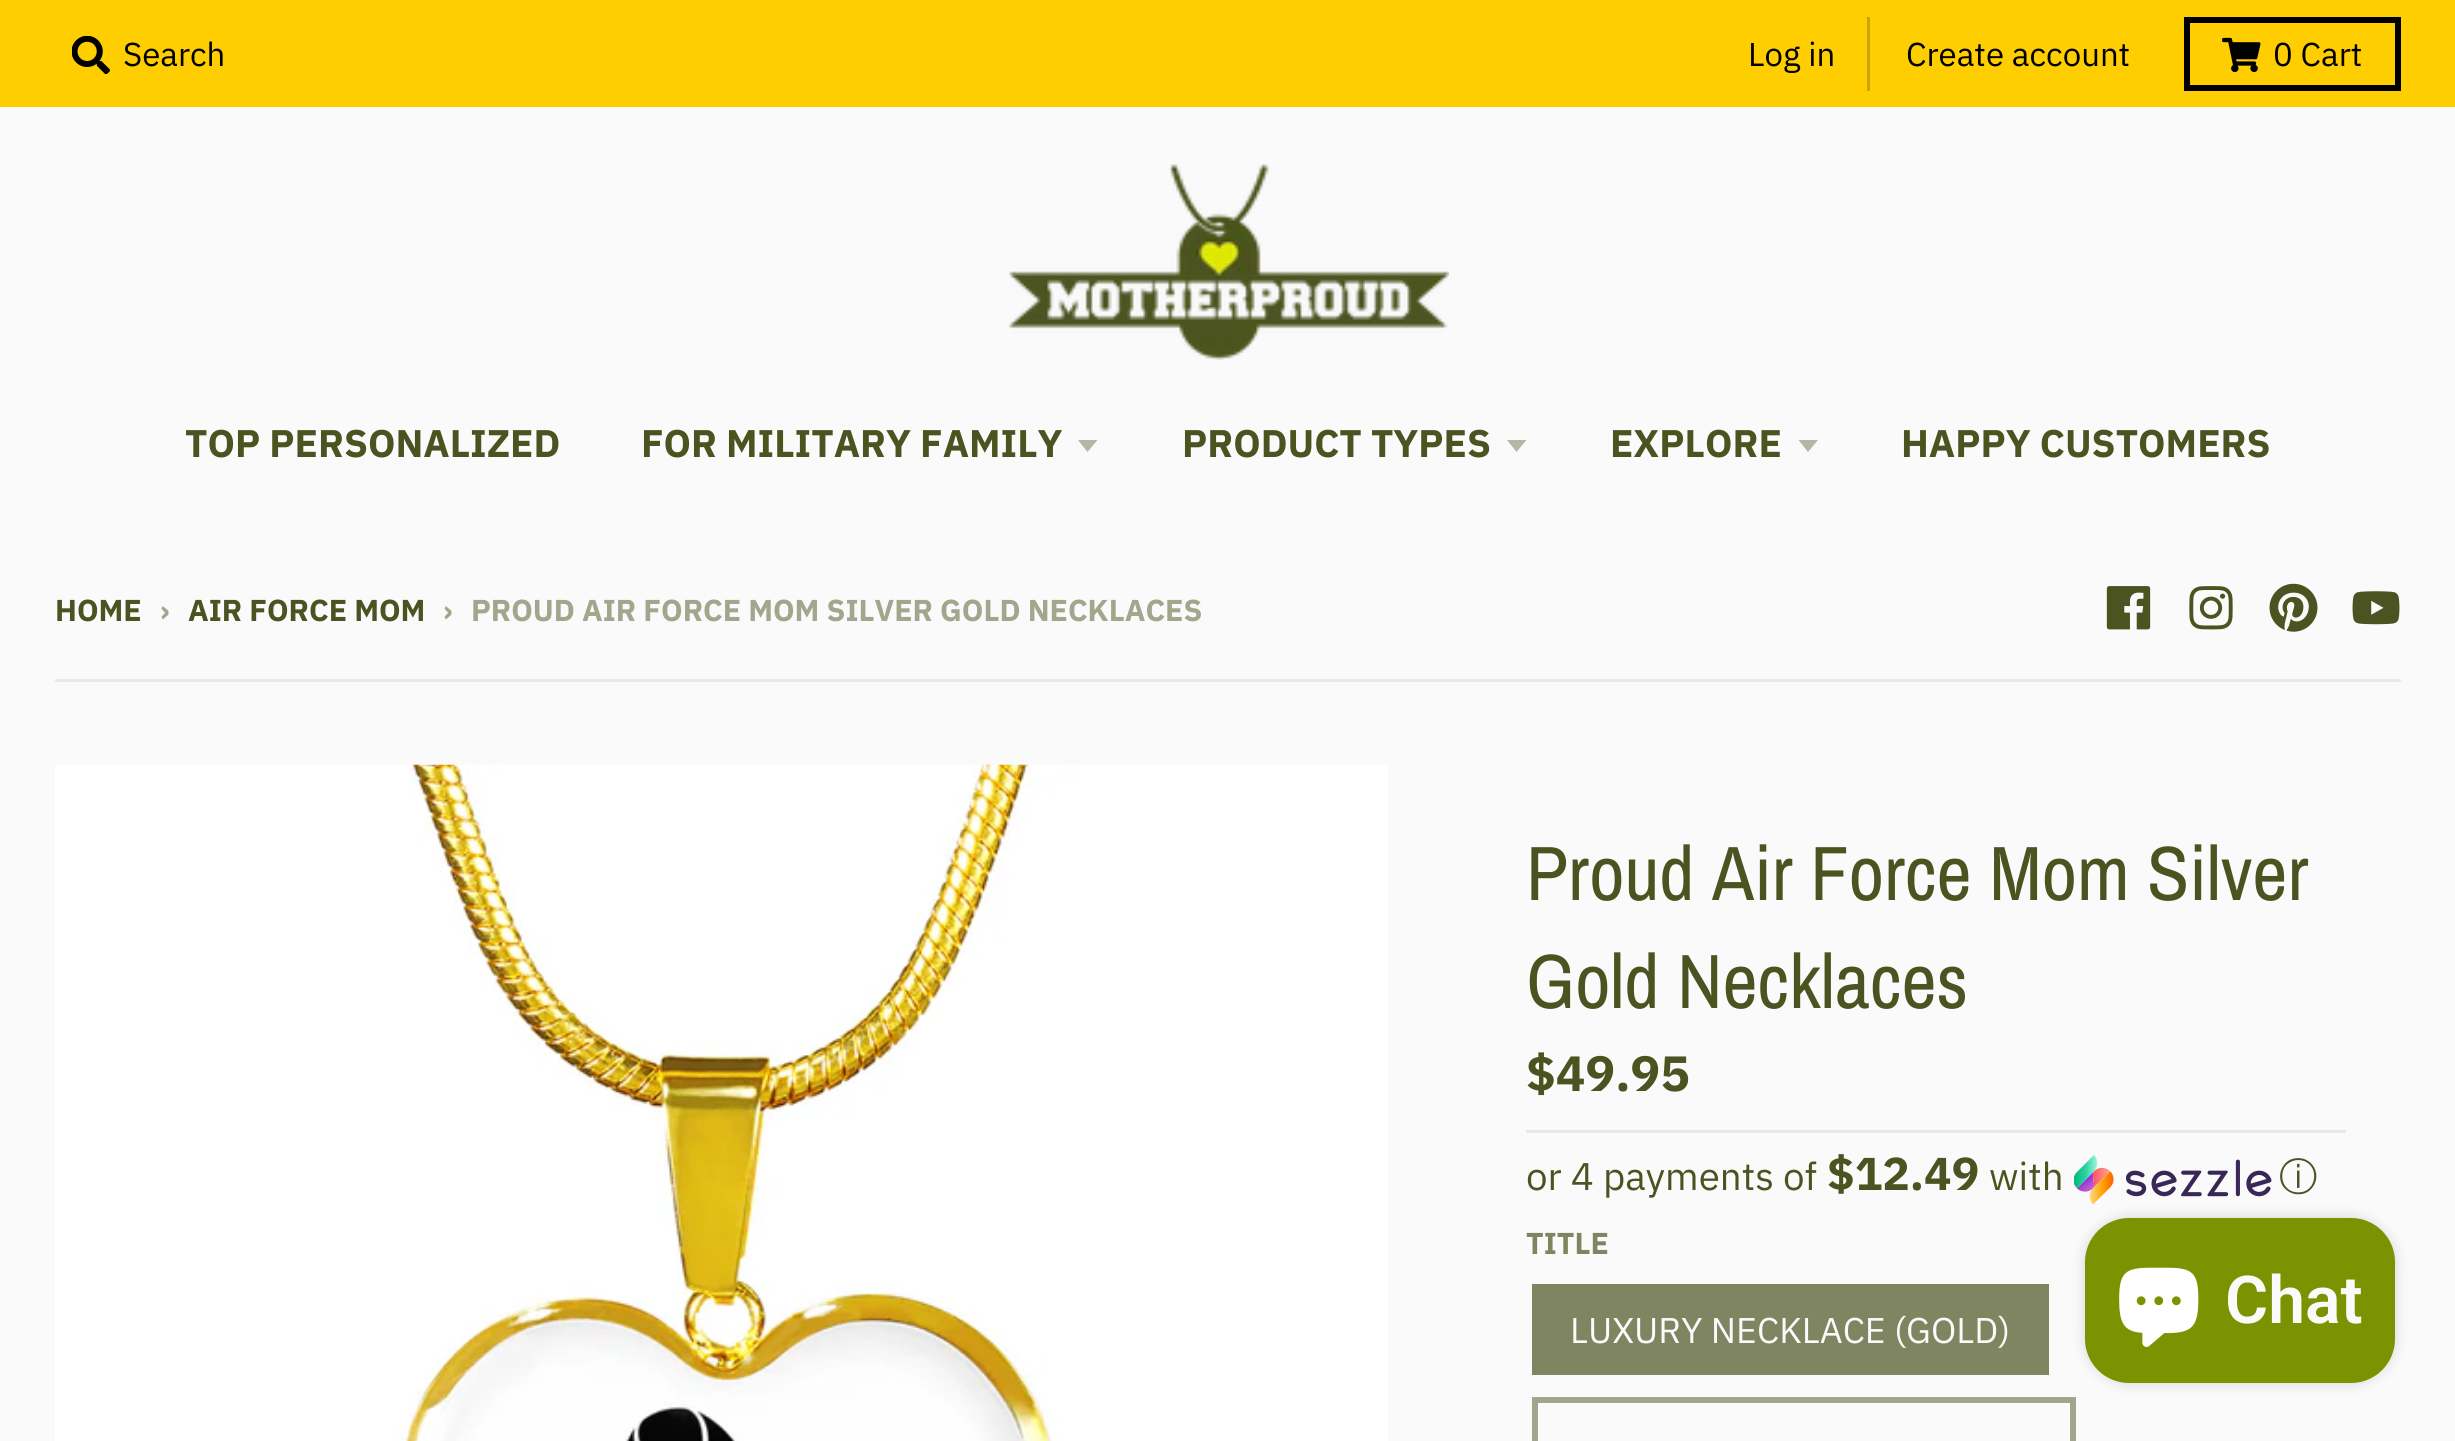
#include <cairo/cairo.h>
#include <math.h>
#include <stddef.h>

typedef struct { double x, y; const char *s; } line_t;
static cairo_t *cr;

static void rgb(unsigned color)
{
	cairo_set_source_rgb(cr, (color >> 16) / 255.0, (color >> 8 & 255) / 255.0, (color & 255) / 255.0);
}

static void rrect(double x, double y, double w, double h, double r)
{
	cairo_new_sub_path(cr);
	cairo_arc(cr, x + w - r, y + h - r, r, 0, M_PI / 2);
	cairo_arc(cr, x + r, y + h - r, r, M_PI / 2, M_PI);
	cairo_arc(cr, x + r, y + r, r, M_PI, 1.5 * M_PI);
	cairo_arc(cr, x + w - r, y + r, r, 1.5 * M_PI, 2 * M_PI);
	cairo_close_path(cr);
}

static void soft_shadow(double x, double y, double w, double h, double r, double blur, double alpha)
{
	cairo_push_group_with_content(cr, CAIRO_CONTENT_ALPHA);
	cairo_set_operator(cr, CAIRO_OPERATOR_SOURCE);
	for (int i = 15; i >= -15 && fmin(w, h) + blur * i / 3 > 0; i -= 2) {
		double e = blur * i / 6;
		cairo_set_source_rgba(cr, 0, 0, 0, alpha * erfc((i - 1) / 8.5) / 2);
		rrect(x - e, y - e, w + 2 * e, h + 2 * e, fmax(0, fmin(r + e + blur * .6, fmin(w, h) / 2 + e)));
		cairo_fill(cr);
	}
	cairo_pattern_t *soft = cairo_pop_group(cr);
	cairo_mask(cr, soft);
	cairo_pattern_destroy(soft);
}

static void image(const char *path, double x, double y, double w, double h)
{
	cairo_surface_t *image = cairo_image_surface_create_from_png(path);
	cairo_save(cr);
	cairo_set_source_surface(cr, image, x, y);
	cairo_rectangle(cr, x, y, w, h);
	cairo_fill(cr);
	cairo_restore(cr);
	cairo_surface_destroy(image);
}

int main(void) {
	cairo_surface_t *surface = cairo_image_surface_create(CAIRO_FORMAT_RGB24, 2455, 1441);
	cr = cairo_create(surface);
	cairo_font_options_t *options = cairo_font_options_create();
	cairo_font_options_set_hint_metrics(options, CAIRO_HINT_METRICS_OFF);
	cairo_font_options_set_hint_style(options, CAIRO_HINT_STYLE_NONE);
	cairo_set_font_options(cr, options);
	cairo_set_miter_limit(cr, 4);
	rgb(0xfafafa);
	cairo_paint(cr);
	rgb(0xffce00);
	cairo_rectangle(cr, 0, 0, 2455, 107);
	cairo_fill(cr);
	image("img/1.png", 72, 36, 38, 38);
	rgb(0xcca400);
	cairo_rectangle(cr, 1867, 17, 3, 74);
	cairo_fill(cr);
	cairo_rectangle(cr, 2187, 20, 211, 68);
	rgb(0x000000);
	cairo_set_line_width(cr, 6);
	cairo_stroke(cr);
	image("img/2.png", 2222, 37, 39, 36);
	image("img/3.png", 1009, 164, 440, 196);
	rgb(0xb4b7a3);
	cairo_new_path(cr);
	cairo_move_to(cr, 1078, 440);
	cairo_line_to(cr, 1087.5, 452);
	cairo_line_to(cr, 1097.5, 440);
	cairo_close_path(cr);
	cairo_fill(cr);
	cairo_new_path(cr);
	cairo_move_to(cr, 1507, 440);
	cairo_line_to(cr, 1516.5, 452);
	cairo_line_to(cr, 1526.5, 440);
	cairo_close_path(cr);
	cairo_fill(cr);
	cairo_new_path(cr);
	cairo_move_to(cr, 1798.5, 440);
	cairo_line_to(cr, 1808, 452);
	cairo_line_to(cr, 1818, 440);
	cairo_close_path(cr);
	cairo_fill(cr);
	image("img/4.png", 2106, 586, 45, 44);
	image("img/5.png", 2189, 586, 44, 44);
	image("img/6.png", 2269, 583, 49, 49);
	image("img/7.png", 2352, 591, 48, 34);
	rgb(0xe8e9e4);
	cairo_rectangle(cr, 55, 679, 2346, 3);
	cairo_fill(cr);
	image("img/8.png", 55, 764, 1333, 677);
	cairo_rectangle(cr, 1526, 1130, 820, 3);
	cairo_fill(cr);
	image("img/9.png", 2074, 1155, 198, 50);
	rgb(0x7f8561);
	cairo_rectangle(cr, 1532, 1284, 517, 91);
	cairo_fill(cr);
	cairo_rectangle(cr, 1535, 1400, 538, 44);
	rgb(0xa2a68d);
	cairo_stroke(cr);
	rgb(0x000000);
	soft_shadow(2085, 1218, 310, 165, 44, 7, 0.15);
	rgb(0x7b9300);
	rrect(2085, 1218, 310, 165, 44);
	cairo_fill(cr);
	image("img/10.png", 2119, 1267, 80, 80);
	cairo_select_font_face(cr, "IBM Plex Sans", CAIRO_FONT_SLANT_NORMAL, CAIRO_FONT_WEIGHT_NORMAL);
	cairo_set_font_size(cr, 33);
	rgb(0x000000);
	{
		static const line_t items[] = {
			{123, 66, "Search"},
			{1748, 66, "Log in"},
			{1906, 66, "Create account"},
			{2273, 66, "0 Cart"},
		};
		for (size_t i = 0; i < sizeof items / sizeof *items; i++) {
			cairo_move_to(cr, items[i].x, items[i].y);
			cairo_show_text(cr, items[i].s);
		}
	}
	cairo_select_font_face(cr, "IBM Plex Sans", CAIRO_FONT_SLANT_NORMAL, CAIRO_FONT_WEIGHT_BOLD);
	cairo_set_font_size(cr, 38.5);
	rgb(0x4b5320);
	{
		static const line_t items[] = {
			{185, 457, "TOP PERSONALIZED"},
			{641, 457, "FOR MILITARY FAMILY"},
			{1182, 457, "PRODUCT TYPES"},
			{1610, 457, "EXPLORE"},
			{1901, 457, "HAPPY CUSTOMERS"},
		};
		for (size_t i = 0; i < sizeof items / sizeof *items; i++) {
			cairo_move_to(cr, items[i].x, items[i].y);
			cairo_show_text(cr, items[i].s);
		}
	}
	cairo_set_font_size(cr, 30.25);
	cairo_move_to(cr, 55, 621);
	cairo_show_text(cr, "HOME");
	rgb(0xa2a68d);
	cairo_move_to(cr, 160, 621);
	cairo_show_text(cr, "›");
	rgb(0x4b5320);
	cairo_move_to(cr, 188, 621);
	cairo_show_text(cr, "AIR FORCE MOM");
	rgb(0xa2a68d);
	cairo_move_to(cr, 443, 621);
	cairo_show_text(cr, "›");
	cairo_move_to(cr, 471, 621);
	cairo_show_text(cr, "PROUD AIR FORCE MOM SILVER GOLD NECKLACES");
	cairo_select_font_face(cr, "Archivo Narrow", CAIRO_FONT_SLANT_NORMAL, CAIRO_FONT_WEIGHT_NORMAL);
	cairo_set_font_size(cr, 77);
	rgb(0x4b5320);
	cairo_move_to(cr, 1526, 900);
	cairo_show_text(cr, "Proud Air Force Mom Silver");
	cairo_move_to(cr, 1526, 1008);
	cairo_show_text(cr, "Gold Necklaces");
	cairo_select_font_face(cr, "IBM Plex Sans", CAIRO_FONT_SLANT_NORMAL, CAIRO_FONT_WEIGHT_BOLD);
	cairo_set_font_size(cr, 49.5);
	cairo_move_to(cr, 1526, 1091);
	cairo_show_text(cr, "$49.95");
	cairo_select_font_face(cr, "IBM Plex Sans", CAIRO_FONT_SLANT_NORMAL, CAIRO_FONT_WEIGHT_NORMAL);
	cairo_set_font_size(cr, 38.5);
	cairo_move_to(cr, 1526, 1190);
	cairo_show_text(cr, "or 4 payments of");
	cairo_select_font_face(cr, "IBM Plex Sans", CAIRO_FONT_SLANT_NORMAL, CAIRO_FONT_WEIGHT_BOLD);
	cairo_set_font_size(cr, 46);
	cairo_move_to(cr, 1827, 1190);
	cairo_show_text(cr, "$12.49");
	cairo_select_font_face(cr, "IBM Plex Sans", CAIRO_FONT_SLANT_NORMAL, CAIRO_FONT_WEIGHT_NORMAL);
	cairo_set_font_size(cr, 38.5);
	cairo_move_to(cr, 1989, 1190);
	cairo_show_text(cr, "with");
	cairo_select_font_face(cr, "WenQuanYi Zen Hei Medium", CAIRO_FONT_SLANT_NORMAL, CAIRO_FONT_WEIGHT_NORMAL);
	cairo_move_to(cr, 2279, 1190);
	cairo_show_text(cr, "ⓘ");
	cairo_select_font_face(cr, "IBM Plex Sans", CAIRO_FONT_SLANT_NORMAL, CAIRO_FONT_WEIGHT_BOLD);
	cairo_set_font_size(cr, 30.25);
	rgb(0x7f8561);
	cairo_move_to(cr, 1526, 1254);
	cairo_show_text(cr, "TITLE");
	cairo_select_font_face(cr, "IBM Plex Sans", CAIRO_FONT_SLANT_NORMAL, CAIRO_FONT_WEIGHT_NORMAL);
	cairo_set_font_size(cr, 35.75);
	rgb(0xfafafa);
	cairo_move_to(cr, 1570, 1343);
	cairo_show_text(cr, "LUXURY NECKLACE (GOLD)");
	cairo_select_font_face(cr, "Roboto SemiBold", CAIRO_FONT_SLANT_NORMAL, CAIRO_FONT_WEIGHT_NORMAL);
	cairo_set_font_size(cr, 66);
	cairo_move_to(cr, 2225, 1323);
	cairo_show_text(cr, "Chat");
	cairo_surface_write_to_png(surface, "page.png");
	cairo_font_options_destroy(options);
	cairo_destroy(cr);
	cairo_surface_destroy(surface);
	return 0;
}
